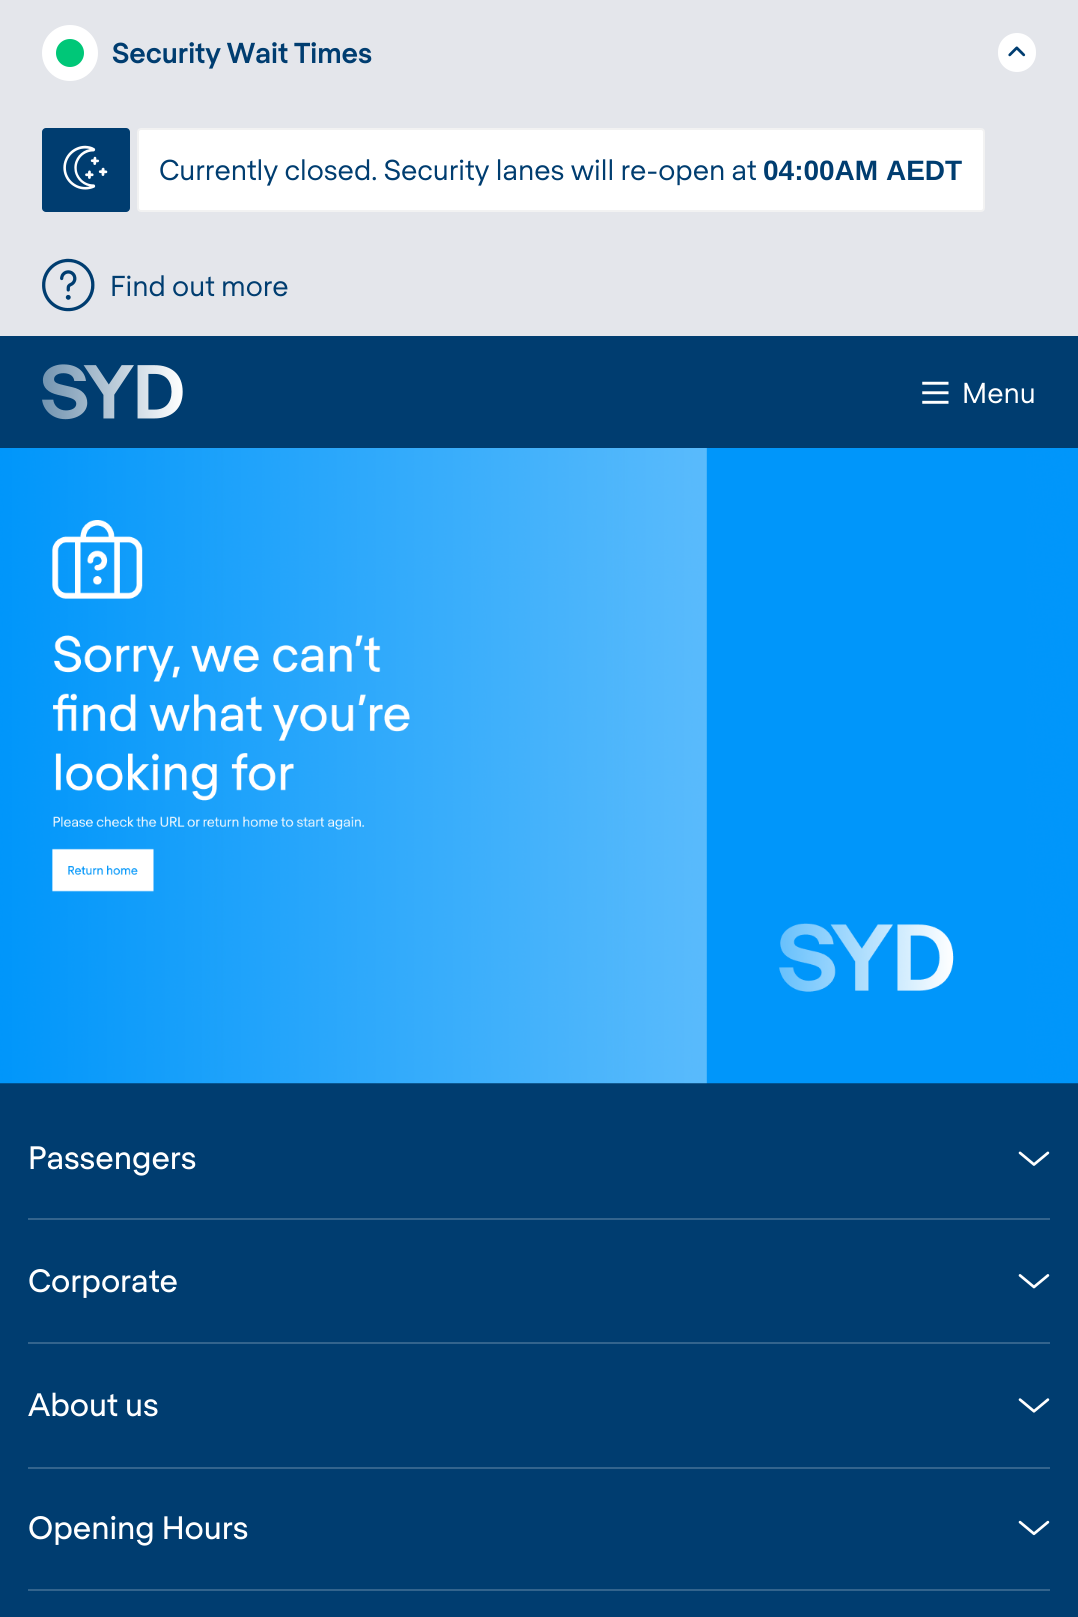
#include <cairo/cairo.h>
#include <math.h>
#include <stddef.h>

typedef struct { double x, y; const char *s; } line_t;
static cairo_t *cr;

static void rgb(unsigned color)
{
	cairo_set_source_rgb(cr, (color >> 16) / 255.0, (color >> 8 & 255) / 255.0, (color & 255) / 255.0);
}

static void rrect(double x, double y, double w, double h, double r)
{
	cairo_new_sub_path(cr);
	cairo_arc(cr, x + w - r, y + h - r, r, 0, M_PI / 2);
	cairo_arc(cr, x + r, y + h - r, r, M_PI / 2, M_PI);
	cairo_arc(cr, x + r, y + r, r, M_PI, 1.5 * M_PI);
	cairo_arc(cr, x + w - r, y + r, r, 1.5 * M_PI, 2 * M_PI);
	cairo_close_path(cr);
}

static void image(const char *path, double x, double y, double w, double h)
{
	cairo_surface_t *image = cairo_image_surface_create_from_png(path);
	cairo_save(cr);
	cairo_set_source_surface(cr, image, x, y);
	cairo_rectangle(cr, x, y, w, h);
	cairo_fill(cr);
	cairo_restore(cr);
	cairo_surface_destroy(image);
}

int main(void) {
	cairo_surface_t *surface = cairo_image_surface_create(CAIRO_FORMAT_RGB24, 1078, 1617);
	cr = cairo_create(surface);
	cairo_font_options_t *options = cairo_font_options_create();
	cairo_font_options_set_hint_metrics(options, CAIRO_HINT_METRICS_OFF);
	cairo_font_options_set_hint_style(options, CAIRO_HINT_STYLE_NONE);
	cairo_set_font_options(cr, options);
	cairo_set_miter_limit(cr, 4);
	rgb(0x003d70);
	cairo_paint(cr);
	rgb(0xe4e6eb);
	cairo_rectangle(cr, 0, 0, 1078, 336);
	cairo_fill(cr);
	rgb(0x00c778);
	cairo_arc(cr, 70, 53, 21, 0, 2 * M_PI);
	cairo_fill_preserve(cr);
	rgb(0xffffff);
	cairo_set_line_width(cr, 14);
	cairo_stroke(cr);
	rrect(998, 33, 38, 39, 19);
	cairo_fill(cr);
	image("img/1.png", 1008, 46, 18, 11);
	rgb(0x003d70);
	rrect(42, 128, 88, 84, 4);
	cairo_fill(cr);
	image("img/2.png", 63, 145, 45, 45);
	rgb(0xffffff);
	rrect(138, 129, 846, 82, 3);
	cairo_fill_preserve(cr);
	rgb(0xf2f2f2);
	cairo_set_line_width(cr, 2);
	cairo_stroke(cr);
	image("img/3.png", 42, 258, 53, 54);
	image("img/4.png", 42, 364, 141, 56);
	image("img/5.png", 922, 381, 27, 23);
	image("img/6.png", 0, 448, 1078, 636);
	rgb(0x33648d);
	cairo_rectangle(cr, 28, 1218, 1022, 2);
	cairo_fill(cr);
	image("img/7.png", 1018, 1151, 32, 15);
	cairo_rectangle(cr, 28, 1342, 1022, 2);
	cairo_fill(cr);
	image("img/8.png", 1018, 1274, 32, 15);
	cairo_rectangle(cr, 28, 1467, 1022, 2);
	cairo_fill(cr);
	image("img/9.png", 1018, 1398, 32, 15);
	cairo_rectangle(cr, 28, 1589, 1022, 2);
	cairo_fill(cr);
	image("img/10.png", 1018, 1520, 32, 16);
	cairo_select_font_face(cr, "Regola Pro", CAIRO_FONT_SLANT_NORMAL, CAIRO_FONT_WEIGHT_BOLD);
	cairo_set_font_size(cr, 28);
	rgb(0x003d70);
	cairo_move_to(cr, 112, 63);
	cairo_show_text(cr, "Security Wait Times");
	cairo_select_font_face(cr, "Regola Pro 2", CAIRO_FONT_SLANT_NORMAL, CAIRO_FONT_WEIGHT_NORMAL);
	cairo_move_to(cr, 159, 180);
	cairo_show_text(cr, "Currently closed. Security lanes will re-open at");
	cairo_select_font_face(cr, "Liberation Sans", CAIRO_FONT_SLANT_NORMAL, CAIRO_FONT_WEIGHT_BOLD);
	cairo_move_to(cr, 763, 180);
	cairo_show_text(cr, "04:00AM AEDT");
	cairo_select_font_face(cr, "Regola Pro 2", CAIRO_FONT_SLANT_NORMAL, CAIRO_FONT_WEIGHT_NORMAL);
	cairo_move_to(cr, 110, 296);
	cairo_show_text(cr, "Find out more");
	rgb(0xffffff);
	cairo_move_to(cr, 962, 403);
	cairo_show_text(cr, "Menu");
	cairo_select_font_face(cr, "Regola Pro", CAIRO_FONT_SLANT_NORMAL, CAIRO_FONT_WEIGHT_NORMAL);
	cairo_set_font_size(cr, 31.5);
	{
		static const line_t items[] = {
			{28, 1169, "Passengers"},
			{28, 1292, "Corporate"},
			{28, 1416, "About us"},
			{28, 1539, "Opening Hours"},
		};
		for (size_t i = 0; i < sizeof items / sizeof *items; i++) {
			cairo_move_to(cr, items[i].x, items[i].y);
			cairo_show_text(cr, items[i].s);
		}
	}
	cairo_surface_write_to_png(surface, "page.png");
	cairo_font_options_destroy(options);
	cairo_destroy(cr);
	cairo_surface_destroy(surface);
	return 0;
}
